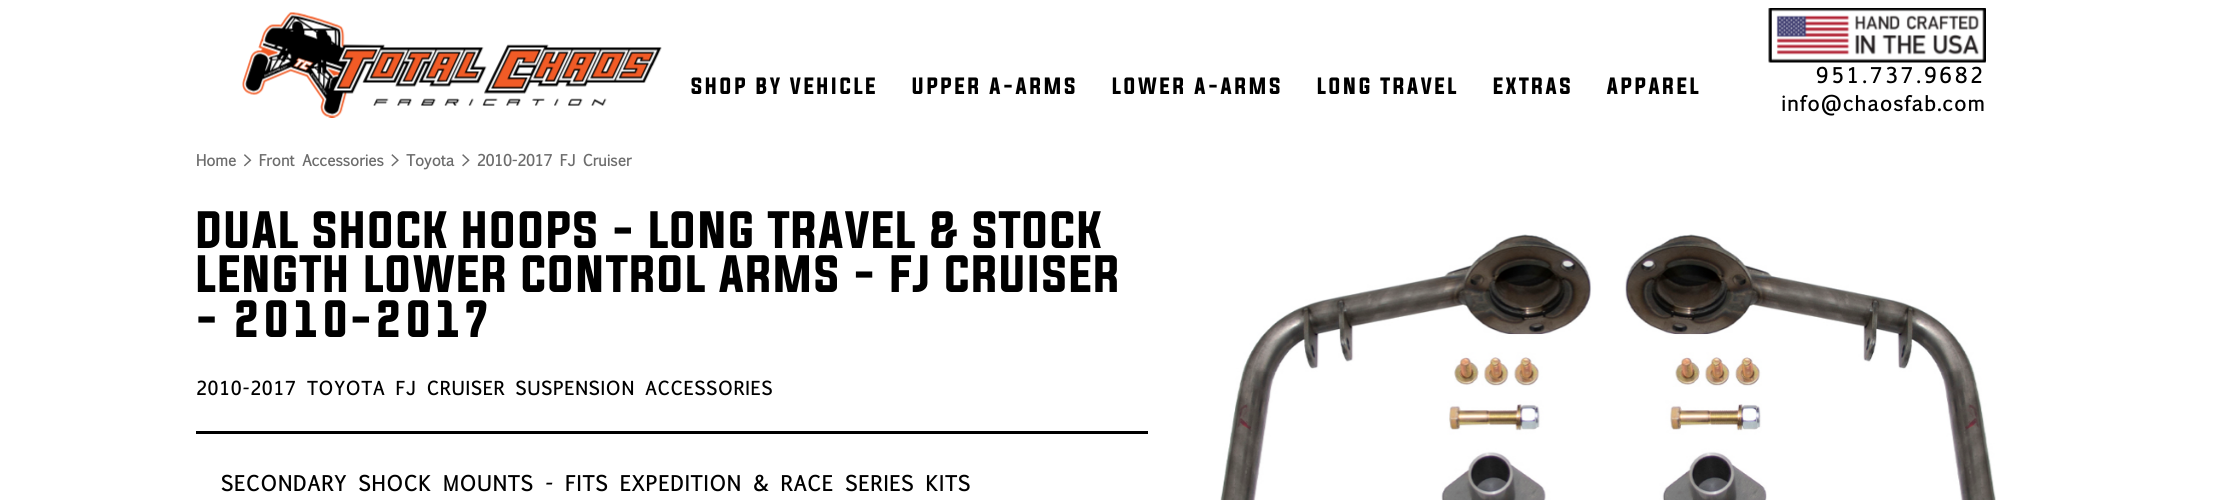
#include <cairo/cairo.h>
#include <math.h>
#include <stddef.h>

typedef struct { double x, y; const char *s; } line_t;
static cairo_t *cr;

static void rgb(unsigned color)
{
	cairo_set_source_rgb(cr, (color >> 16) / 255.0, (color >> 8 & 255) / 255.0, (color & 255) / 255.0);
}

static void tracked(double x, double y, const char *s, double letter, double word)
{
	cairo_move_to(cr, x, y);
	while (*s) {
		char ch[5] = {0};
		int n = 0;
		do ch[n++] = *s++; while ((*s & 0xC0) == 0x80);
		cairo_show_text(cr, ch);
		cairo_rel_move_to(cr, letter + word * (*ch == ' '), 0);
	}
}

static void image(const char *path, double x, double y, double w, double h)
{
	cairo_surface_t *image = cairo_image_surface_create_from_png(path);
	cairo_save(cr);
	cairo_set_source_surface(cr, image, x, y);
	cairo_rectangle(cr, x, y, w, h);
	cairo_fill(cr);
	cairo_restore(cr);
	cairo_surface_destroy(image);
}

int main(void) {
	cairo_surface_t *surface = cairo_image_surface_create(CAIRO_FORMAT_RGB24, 2226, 500);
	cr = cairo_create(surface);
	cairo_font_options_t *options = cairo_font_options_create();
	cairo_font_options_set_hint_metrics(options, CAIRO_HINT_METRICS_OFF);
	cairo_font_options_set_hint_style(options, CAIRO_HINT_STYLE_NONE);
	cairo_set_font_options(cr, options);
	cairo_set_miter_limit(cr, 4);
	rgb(0xffffff);
	cairo_paint(cr);
	image("img/1.png", 242, 12, 420, 106);
	image("img/2.png", 1768, 8, 218, 55);
	rgb(0x000000);
	cairo_rectangle(cr, 196, 431, 952, 3);
	cairo_fill(cr);
	image("img/3.png", 1220, 234, 776, 266);
	cairo_select_font_face(cr, "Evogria", CAIRO_FONT_SLANT_NORMAL, CAIRO_FONT_WEIGHT_NORMAL);
	cairo_set_font_size(cr, 20);
	{
		static const line_t items[] = {
			{691, 94, "SHOP BY VEHICLE"},
			{912, 94, "UPPER A-ARMS"},
			{1112, 94, "LOWER A-ARMS"},
			{1317, 94, "LONG TRAVEL"},
			{1493, 94, "EXTRAS"},
			{1607, 94, "APPAREL"},
		};
		for (size_t i = 0; i < sizeof items / sizeof *items; i++) {
			tracked(items[i].x, items[i].y, items[i].s, 2.5, 0);
		}
	}
	cairo_select_font_face(cr, "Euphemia", CAIRO_FONT_SLANT_NORMAL, CAIRO_FONT_WEIGHT_BOLD);
	tracked(1816, 83, "951.737.9682", 3.75, 0);
	tracked(1781, 111, "info@chaosfab.com", 1.25, 0);
	cairo_set_font_size(cr, 15);
	rgb(0x6c6c6c);
	cairo_move_to(cr, 196, 166);
	cairo_show_text(cr, "Home > Front Accessories > Toyota > 2010-2017 FJ Cruiser");
	cairo_select_font_face(cr, "Evogria", CAIRO_FONT_SLANT_NORMAL, CAIRO_FONT_WEIGHT_NORMAL);
	cairo_set_font_size(cr, 44.5);
	rgb(0x000000);
	{
		static const line_t items[] = {
			{196, 248, "DUAL SHOCK HOOPS - LONG TRAVEL & STOCK"},
			{196, 292, "LENGTH LOWER CONTROL ARMS - FJ CRUISER"},
			{196, 337, "- 2010-2017"},
		};
		for (size_t i = 0; i < sizeof items / sizeof *items; i++) {
			tracked(items[i].x, items[i].y, items[i].s, 1.25, 0);
		}
	}
	cairo_select_font_face(cr, "Euphemia", CAIRO_FONT_SLANT_NORMAL, CAIRO_FONT_WEIGHT_BOLD);
	cairo_set_font_size(cr, 17.8);
	tracked(196, 395, "2010-2017 TOYOTA FJ CRUISER SUSPENSION ACCESSORIES", 1.25, 0);
	cairo_set_font_size(cr, 20);
	tracked(221, 491, "SECONDARY SHOCK MOUNTS - FITS EXPEDITION & RACE SERIES KITS", 1.25, 0);
	cairo_surface_write_to_png(surface, "page.png");
	cairo_font_options_destroy(options);
	cairo_destroy(cr);
	cairo_surface_destroy(surface);
	return 0;
}
